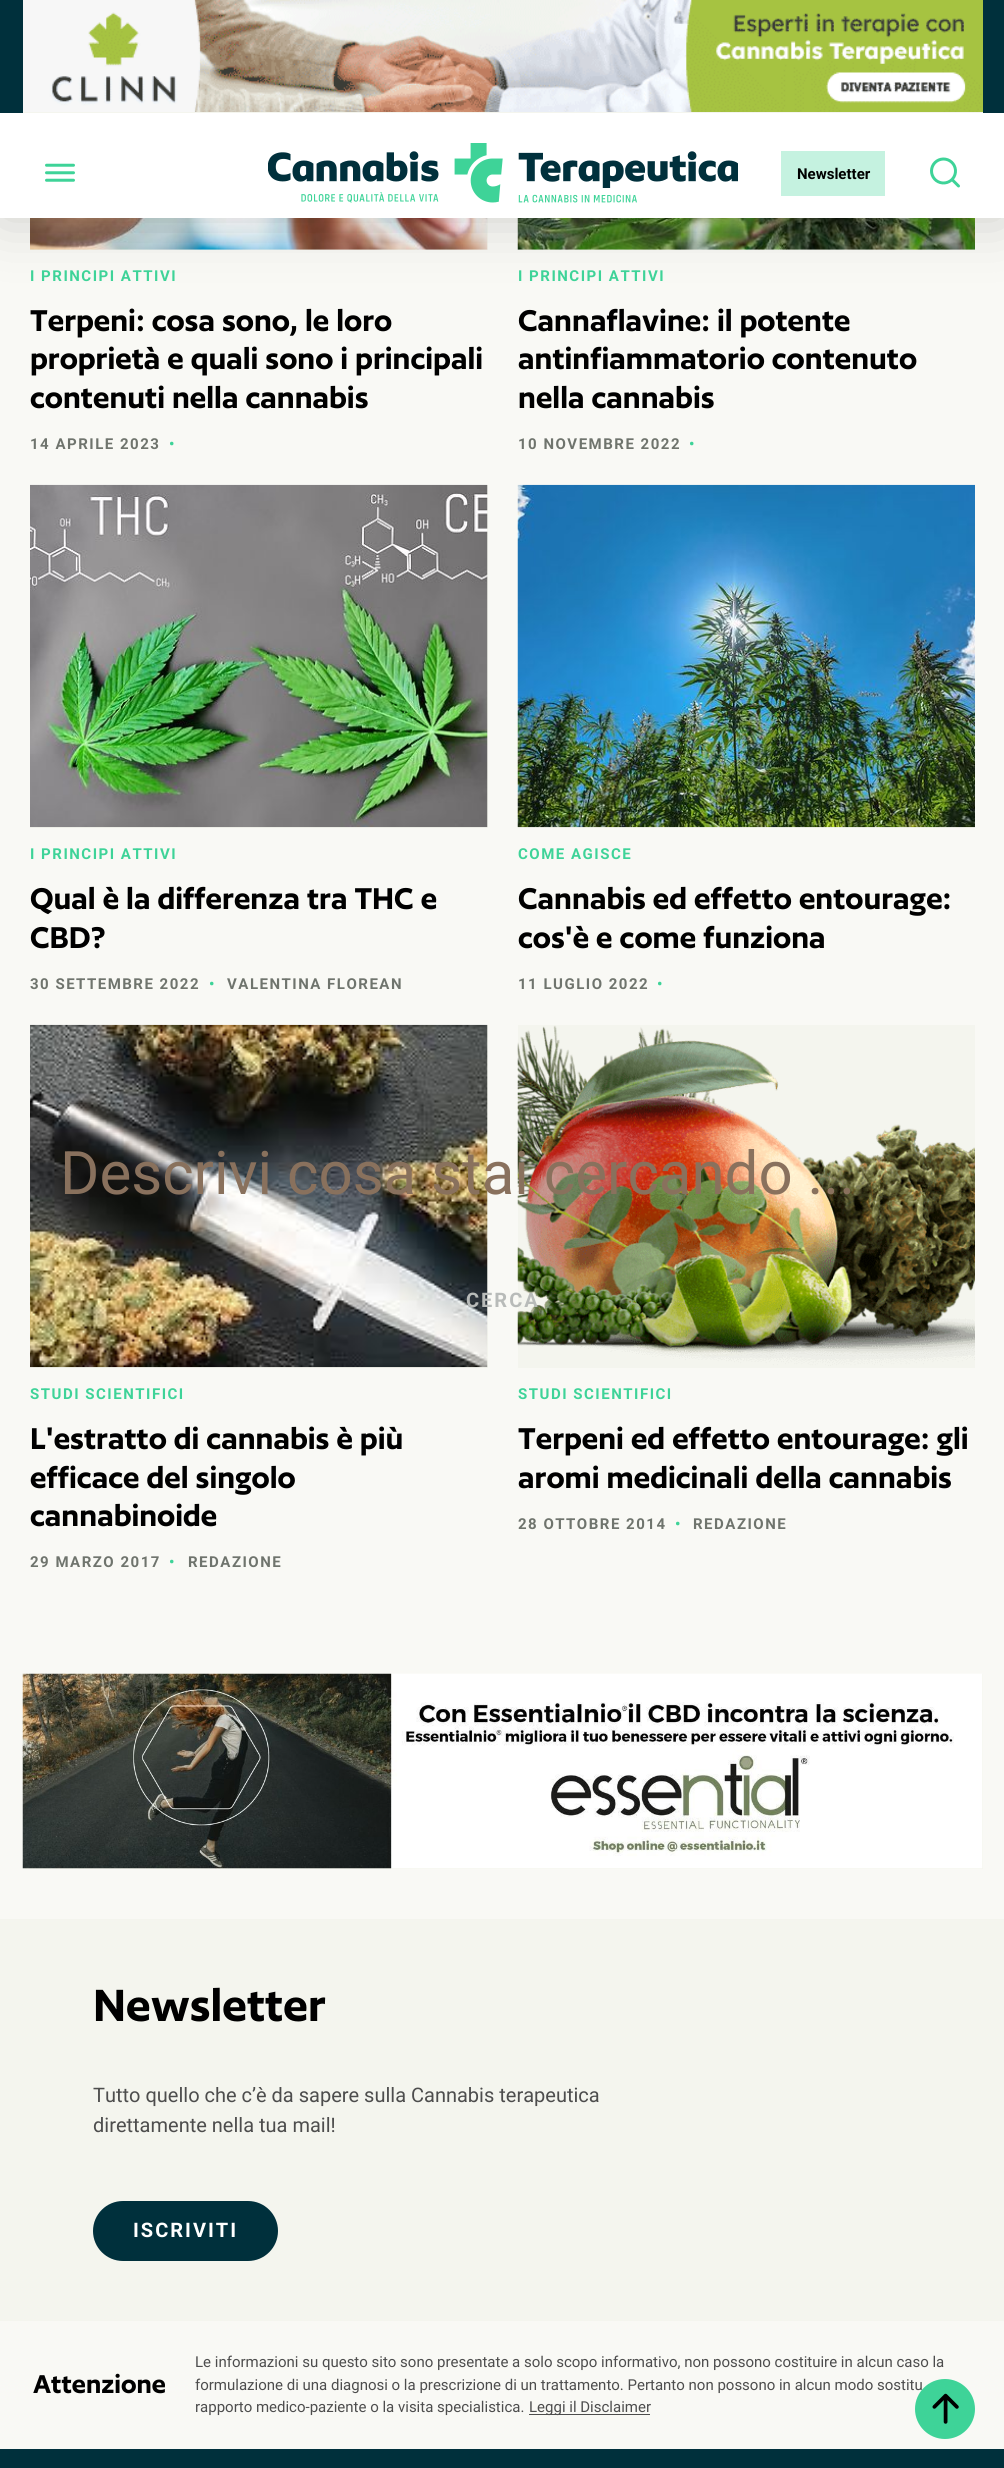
#include <cairo/cairo.h>
#include <math.h>
#include <stddef.h>

typedef struct { double x, y; const char *s; } line_t;
typedef struct { double x, y, w, h; unsigned color; } box_t;
static cairo_t *cr;

static void rgb(unsigned color)
{
	cairo_set_source_rgb(cr, (color >> 16) / 255.0, (color >> 8 & 255) / 255.0, (color & 255) / 255.0);
}

static void tracked(double x, double y, const char *s, double letter, double word)
{
	cairo_move_to(cr, x, y);
	while (*s) {
		char ch[5] = {0};
		int n = 0;
		do ch[n++] = *s++; while ((*s & 0xC0) == 0x80);
		cairo_show_text(cr, ch);
		cairo_rel_move_to(cr, letter + word * (*ch == ' '), 0);
	}
}

static void rrect(double x, double y, double w, double h, double r)
{
	cairo_new_sub_path(cr);
	cairo_arc(cr, x + w - r, y + h - r, r, 0, M_PI / 2);
	cairo_arc(cr, x + r, y + h - r, r, M_PI / 2, M_PI);
	cairo_arc(cr, x + r, y + r, r, M_PI, 1.5 * M_PI);
	cairo_arc(cr, x + w - r, y + r, r, 1.5 * M_PI, 2 * M_PI);
	cairo_close_path(cr);
}

static void soft_shadow(double x, double y, double w, double h, double r, double blur, double alpha)
{
	cairo_push_group_with_content(cr, CAIRO_CONTENT_ALPHA);
	cairo_set_operator(cr, CAIRO_OPERATOR_SOURCE);
	for (int i = 15; i >= -15 && fmin(w, h) + blur * i / 3 > 0; i -= 2) {
		double e = blur * i / 6;
		cairo_set_source_rgba(cr, 0, 0, 0, alpha * erfc((i - 1) / 8.5) / 2);
		rrect(x - e, y - e, w + 2 * e, h + 2 * e, fmax(0, fmin(r + e + blur * .6, fmin(w, h) / 2 + e)));
		cairo_fill(cr);
	}
	cairo_pattern_t *soft = cairo_pop_group(cr);
	cairo_mask(cr, soft);
	cairo_pattern_destroy(soft);
}

static void image(const char *path, double x, double y, double w, double h)
{
	cairo_surface_t *image = cairo_image_surface_create_from_png(path);
	cairo_save(cr);
	cairo_set_source_surface(cr, image, x, y);
	cairo_rectangle(cr, x, y, w, h);
	cairo_fill(cr);
	cairo_restore(cr);
	cairo_surface_destroy(image);
}

int main(void) {
	cairo_surface_t *surface = cairo_image_surface_create(CAIRO_FORMAT_RGB24, 1004, 2468);
	cr = cairo_create(surface);
	cairo_font_options_t *options = cairo_font_options_create();
	cairo_font_options_set_hint_metrics(options, CAIRO_HINT_METRICS_OFF);
	cairo_font_options_set_hint_style(options, CAIRO_HINT_STYLE_NONE);
	cairo_set_font_options(cr, options);
	cairo_set_miter_limit(cr, 4);
	rgb(0xf9f9f5);
	cairo_paint(cr);
	rgb(0xf4f5ee);
	cairo_rectangle(cr, 30, 218, 458, 32);
	cairo_fill(cr);
	image("img/5.png", 30, 218, 458, 32);
	cairo_rectangle(cr, 518, 249, 457, 1);
	cairo_fill(cr);
	image("img/6.png", 517, 218, 458, 32);
	rgb(0x000000);
	soft_shadow(0, 0, 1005, 218, 0, 30, 0.18);
	{
		static const box_t items[] = {
			{0, 113, 1004, 105, 0xffffff},
			{0, 0, 1004, 113, 0x00303c},
			{23, 112, 960, 1, 0xf4f5ee},
		};
		for (size_t i = 0; i < sizeof items / sizeof *items; i++) {
			rgb(items[i].color);
			cairo_rectangle(cr, items[i].x, items[i].y, items[i].w, items[i].h);
			cairo_fill(cr);
		}
	}
	image("img/1.png", 23, 0, 960, 112);
	image("img/2.png", 45, 163, 30, 19);
	image("img/3.png", 268, 143, 470, 60);
	image("img/4.png", 930, 157, 30, 31);
	rgb(0xc5f2e0);
	cairo_rectangle(cr, 781, 151, 104, 45);
	cairo_fill(cr);
	rgb(0xf4f5ee);
	cairo_rectangle(cr, 30, 485, 458, 343);
	cairo_fill(cr);
	image("img/7.png", 30, 484, 458, 344);
	cairo_rectangle(cr, 518, 827, 457, 1);
	cairo_fill(cr);
	image("img/8.png", 517, 484, 458, 344);
	cairo_rectangle(cr, 30, 1025, 458, 343);
	cairo_fill(cr);
	image("img/9.png", 30, 1024, 458, 344);
	cairo_rectangle(cr, 518, 1025, 457, 343);
	cairo_fill(cr);
	image("img/10.png", 517, 1025, 458, 341);
	cairo_rectangle(cr, 23, 1674, 960, 195);
	cairo_fill(cr);
	image("img/11.png", 22, 1673, 961, 196);
	cairo_rectangle(cr, 0, 1919, 1004, 402);
	cairo_fill(cr);
	rgb(0x00303c);
	rrect(93, 2201, 185, 60, 30);
	cairo_fill(cr);
	rgb(0x4d4d4d);
	cairo_rectangle(cr, 529, 2414, 121, 1);
	cairo_fill(cr);
	rgb(0x00303c);
	cairo_rectangle(cr, 0, 2449, 1004, 19);
	cairo_fill(cr);
	cairo_select_font_face(cr, "Roboto", CAIRO_FONT_SLANT_NORMAL, CAIRO_FONT_WEIGHT_BOLD);
	cairo_set_font_size(cr, 15);
	rgb(0x000000);
	cairo_move_to(cr, 797, 179);
	cairo_show_text(cr, "Newsletter");
	rgb(0x3ed398);
	tracked(30, 281, "I PRINCIPI ATTIVI", 1.5, 0);
	cairo_select_font_face(cr, "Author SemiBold", CAIRO_FONT_SLANT_NORMAL, CAIRO_FONT_WEIGHT_NORMAL);
	cairo_set_font_size(cr, 35);
	rgb(0x000000);
	{
		static const line_t items[] = {
			{30, 331, "Terpeni: cosa sono, le loro"},
			{30, 369, "proprietà e quali sono i principali"},
			{30, 408, "contenuti nella cannabis"},
		};
		for (size_t i = 0; i < sizeof items / sizeof *items; i++) {
			cairo_move_to(cr, items[i].x, items[i].y);
			cairo_show_text(cr, items[i].s);
		}
	}
	cairo_select_font_face(cr, "Roboto", CAIRO_FONT_SLANT_NORMAL, CAIRO_FONT_WEIGHT_BOLD);
	cairo_set_font_size(cr, 15);
	rgb(0x6f746d);
	tracked(30, 449, "14 APRILE 2023", 1.5, 0);
	rgb(0x3ed398);
	tracked(169, 449, "•", 1.5, 0);
	tracked(518, 281, "I PRINCIPI ATTIVI", 1.5, 0);
	cairo_select_font_face(cr, "Author SemiBold", CAIRO_FONT_SLANT_NORMAL, CAIRO_FONT_WEIGHT_NORMAL);
	cairo_set_font_size(cr, 35);
	rgb(0x000000);
	{
		static const line_t items[] = {
			{518, 331, "Cannaflavine: il potente"},
			{518, 369, "antinfiammatorio contenuto"},
			{518, 408, "nella cannabis"},
		};
		for (size_t i = 0; i < sizeof items / sizeof *items; i++) {
			cairo_move_to(cr, items[i].x, items[i].y);
			cairo_show_text(cr, items[i].s);
		}
	}
	cairo_select_font_face(cr, "Roboto", CAIRO_FONT_SLANT_NORMAL, CAIRO_FONT_WEIGHT_BOLD);
	cairo_set_font_size(cr, 15);
	rgb(0x6f746d);
	tracked(518, 449, "10 NOVEMBRE 2022", 1.5, 0);
	rgb(0x3ed398);
	tracked(689, 449, "•", 1.5, 0);
	tracked(30, 859, "I PRINCIPI ATTIVI", 1.5, 0);
	cairo_select_font_face(cr, "Author SemiBold", CAIRO_FONT_SLANT_NORMAL, CAIRO_FONT_WEIGHT_NORMAL);
	cairo_set_font_size(cr, 35);
	rgb(0x000000);
	cairo_move_to(cr, 30, 909);
	cairo_show_text(cr, "Qual è la differenza tra THC e");
	cairo_move_to(cr, 30, 948);
	cairo_show_text(cr, "CBD?");
	cairo_select_font_face(cr, "Roboto", CAIRO_FONT_SLANT_NORMAL, CAIRO_FONT_WEIGHT_BOLD);
	cairo_set_font_size(cr, 15);
	rgb(0x6f746d);
	tracked(30, 989, "30 SETTEMBRE 2022", 1.5, 0);
	rgb(0x3ed398);
	tracked(209, 989, "•", 1.5, 0);
	rgb(0x6f746d);
	tracked(227, 989, "VALENTINA FLOREAN", 1.5, 0);
	rgb(0x3ed398);
	tracked(518, 859, "COME AGISCE", 1.5, 0);
	cairo_select_font_face(cr, "Author SemiBold", CAIRO_FONT_SLANT_NORMAL, CAIRO_FONT_WEIGHT_NORMAL);
	cairo_set_font_size(cr, 35);
	rgb(0x000000);
	cairo_move_to(cr, 518, 909);
	cairo_show_text(cr, "Cannabis ed effetto entourage:");
	cairo_move_to(cr, 518, 948);
	cairo_show_text(cr, "cos'è e come funziona");
	cairo_select_font_face(cr, "Roboto", CAIRO_FONT_SLANT_NORMAL, CAIRO_FONT_WEIGHT_BOLD);
	cairo_set_font_size(cr, 15);
	rgb(0x6f746d);
	tracked(518, 989, "11 LUGLIO 2022", 1.5, 0);
	rgb(0x3ed398);
	tracked(657, 989, "•", 1.5, 0);
	tracked(30, 1399, "STUDI SCIENTIFICI", 1.5, 0);
	cairo_select_font_face(cr, "Author SemiBold", CAIRO_FONT_SLANT_NORMAL, CAIRO_FONT_WEIGHT_NORMAL);
	cairo_set_font_size(cr, 35);
	rgb(0x000000);
	{
		static const line_t items[] = {
			{30, 1449, "L'estratto di cannabis è più"},
			{30, 1488, "efficace del singolo"},
			{30, 1526, "cannabinoide"},
		};
		for (size_t i = 0; i < sizeof items / sizeof *items; i++) {
			cairo_move_to(cr, items[i].x, items[i].y);
			cairo_show_text(cr, items[i].s);
		}
	}
	cairo_select_font_face(cr, "Roboto", CAIRO_FONT_SLANT_NORMAL, CAIRO_FONT_WEIGHT_BOLD);
	cairo_set_font_size(cr, 15);
	rgb(0x6f746d);
	tracked(30, 1567, "29 MARZO 2017", 1.5, 0);
	rgb(0x3ed398);
	tracked(169, 1567, "•", 1.5, 0);
	rgb(0x6f746d);
	tracked(188, 1567, "REDAZIONE", 1.5, 0);
	rgb(0x3ed398);
	tracked(518, 1399, "STUDI SCIENTIFICI", 1.5, 0);
	cairo_select_font_face(cr, "Author SemiBold", CAIRO_FONT_SLANT_NORMAL, CAIRO_FONT_WEIGHT_NORMAL);
	cairo_set_font_size(cr, 35);
	rgb(0x000000);
	cairo_move_to(cr, 518, 1449);
	cairo_show_text(cr, "Terpeni ed effetto entourage: gli");
	cairo_move_to(cr, 518, 1488);
	cairo_show_text(cr, "aromi medicinali della cannabis");
	cairo_select_font_face(cr, "Roboto", CAIRO_FONT_SLANT_NORMAL, CAIRO_FONT_WEIGHT_BOLD);
	cairo_set_font_size(cr, 15);
	rgb(0x6f746d);
	tracked(518, 1529, "28 OTTOBRE 2014", 1.5, 0);
	rgb(0x3ed398);
	tracked(675, 1529, "•", 1.5, 0);
	rgb(0x6f746d);
	tracked(693, 1529, "REDAZIONE", 1.5, 0);
	cairo_select_font_face(cr, "Roboto", CAIRO_FONT_SLANT_NORMAL, CAIRO_FONT_WEIGHT_NORMAL);
	cairo_set_font_size(cr, 60);
	rgb(0x89715d);
	cairo_move_to(cr, 60, 1194);
	cairo_show_text(cr, "Descrivi cosa stai cercando ...");
	cairo_select_font_face(cr, "Roboto", CAIRO_FONT_SLANT_NORMAL, CAIRO_FONT_WEIGHT_BOLD);
	cairo_set_font_size(cr, 20);
	rgb(0xb8bbb9);
	tracked(466, 1307, "CERCA", 2, 0);
	cairo_select_font_face(cr, "Author SemiBold", CAIRO_FONT_SLANT_NORMAL, CAIRO_FONT_WEIGHT_NORMAL);
	cairo_set_font_size(cr, 52.5);
	rgb(0x000000);
	cairo_move_to(cr, 93, 2021);
	cairo_show_text(cr, "Newsletter");
	cairo_select_font_face(cr, "Roboto", CAIRO_FONT_SLANT_NORMAL, CAIRO_FONT_WEIGHT_NORMAL);
	cairo_set_font_size(cr, 20);
	rgb(0x4d4d4d);
	cairo_move_to(cr, 93, 2102);
	cairo_show_text(cr, "Tutto quello che c’è da sapere sulla Cannabis terapeutica");
	cairo_move_to(cr, 93, 2132);
	cairo_show_text(cr, "direttamente nella tua mail!");
	cairo_select_font_face(cr, "Roboto", CAIRO_FONT_SLANT_NORMAL, CAIRO_FONT_WEIGHT_BOLD);
	rgb(0xffffff);
	tracked(133, 2237, "ISCRIVITI", 2, 0);
	cairo_select_font_face(cr, "Author SemiBold", CAIRO_FONT_SLANT_NORMAL, CAIRO_FONT_WEIGHT_NORMAL);
	cairo_set_font_size(cr, 30);
	rgb(0x000000);
	cairo_move_to(cr, 33, 2393);
	cairo_show_text(cr, "Attenzione");
	cairo_select_font_face(cr, "Roboto", CAIRO_FONT_SLANT_NORMAL, CAIRO_FONT_WEIGHT_NORMAL);
	cairo_set_font_size(cr, 15);
	rgb(0x4d4d4d);
	{
		static const line_t items[] = {
			{195, 2367, "Le informazioni su questo sito sono presentate a solo scopo informativo, non possono costituire in alcun caso la"},
			{195, 2390, "formulazione di una diagnosi o la prescrizione di un trattamento. Pertanto non possono in alcun modo sostitu"},
			{195, 2412, "rapporto medico-paziente o la visita specialistica."},
			{529, 2412, "Leggi il Disclaimer"},
		};
		for (size_t i = 0; i < sizeof items / sizeof *items; i++) {
			cairo_move_to(cr, items[i].x, items[i].y);
			cairo_show_text(cr, items[i].s);
		}
	}
	rgb(0x3ed398);
	cairo_new_path(cr);
	cairo_arc(cr, 945, 2409, 30, 0, 2 * M_PI);
	cairo_fill(cr);
	image("img/12.png", 932, 2393, 27, 31);
	cairo_surface_write_to_png(surface, "page.png");
	cairo_font_options_destroy(options);
	cairo_destroy(cr);
	cairo_surface_destroy(surface);
	return 0;
}
